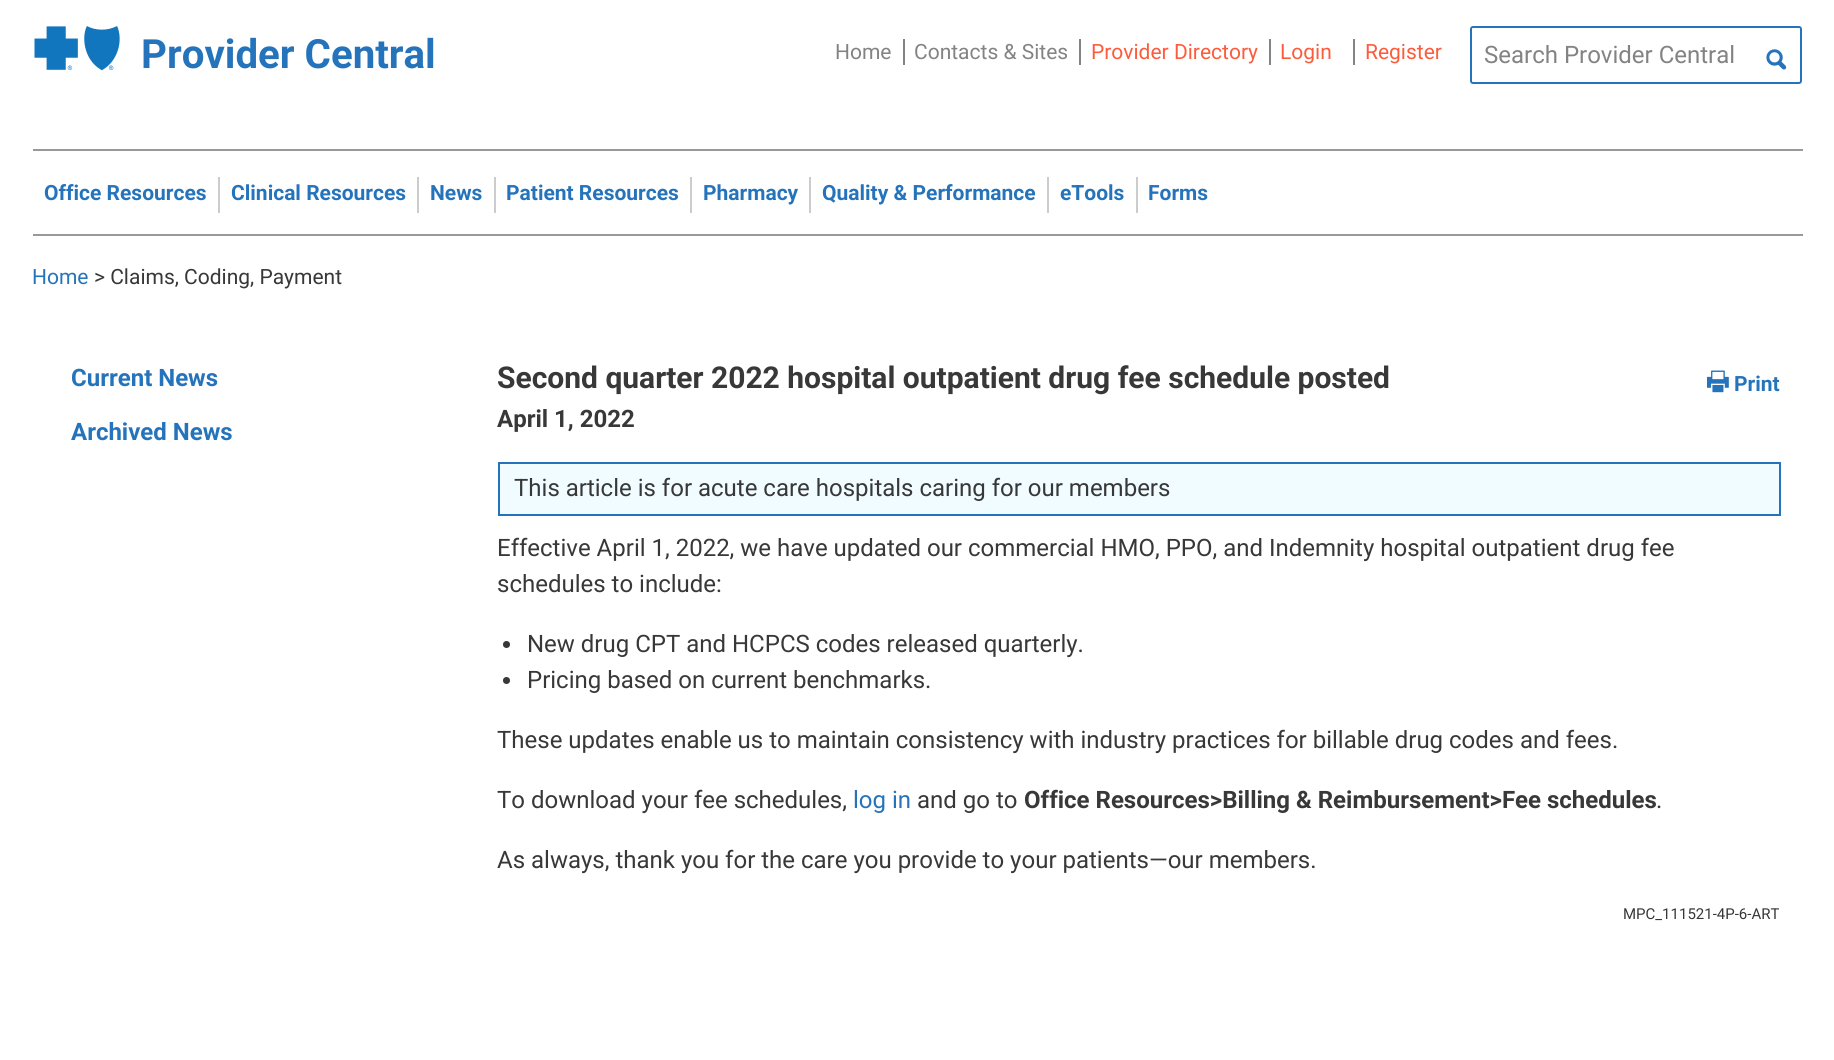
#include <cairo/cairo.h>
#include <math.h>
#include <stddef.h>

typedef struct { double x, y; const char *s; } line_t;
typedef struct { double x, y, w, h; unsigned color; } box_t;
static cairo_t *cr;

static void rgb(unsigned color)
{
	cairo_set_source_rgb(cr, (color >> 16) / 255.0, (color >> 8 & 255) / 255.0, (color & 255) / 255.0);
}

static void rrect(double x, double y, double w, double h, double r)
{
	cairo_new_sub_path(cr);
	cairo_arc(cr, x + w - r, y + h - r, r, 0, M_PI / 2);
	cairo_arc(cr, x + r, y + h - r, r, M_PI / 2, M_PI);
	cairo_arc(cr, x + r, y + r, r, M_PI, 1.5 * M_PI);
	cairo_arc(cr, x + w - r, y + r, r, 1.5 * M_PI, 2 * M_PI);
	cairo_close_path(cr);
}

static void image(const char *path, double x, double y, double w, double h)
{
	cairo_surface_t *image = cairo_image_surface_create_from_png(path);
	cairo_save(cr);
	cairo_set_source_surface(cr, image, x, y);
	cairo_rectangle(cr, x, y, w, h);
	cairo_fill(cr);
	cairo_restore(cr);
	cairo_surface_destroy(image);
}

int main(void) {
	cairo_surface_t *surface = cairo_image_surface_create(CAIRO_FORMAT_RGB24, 1834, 1060);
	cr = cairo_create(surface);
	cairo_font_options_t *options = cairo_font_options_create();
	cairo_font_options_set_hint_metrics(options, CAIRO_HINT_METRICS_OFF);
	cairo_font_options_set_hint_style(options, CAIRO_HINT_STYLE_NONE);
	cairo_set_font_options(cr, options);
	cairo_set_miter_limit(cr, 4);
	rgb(0xffffff);
	cairo_paint(cr);
	image("img/1.png", 34, 26, 86, 45);
	{
		static const box_t items[] = {
			{903, 39, 2, 26, 0x838383},
			{1079, 39, 2, 26, 0x838383},
			{1269, 39, 2, 26, 0x838383},
			{1353, 39, 2, 26, 0x838383},
		};
		for (size_t i = 0; i < sizeof items / sizeof *items; i++) {
			rgb(items[i].color);
			cairo_rectangle(cr, items[i].x, items[i].y, items[i].w, items[i].h);
			cairo_fill(cr);
		}
	}
	rrect(1471, 27, 330, 56, 2);
	rgb(0x2574bb);
	cairo_stroke(cr);
	image("img/2.png", 1766, 49, 21, 21);
	{
		static const box_t items[] = {
			{33, 149, 1770, 2, 0x999999},
			{33, 234, 1770, 2, 0x999999},
			{218, 177, 2, 36, 0xcccccc},
			{417, 177, 2, 36, 0xcccccc},
			{494, 177, 2, 36, 0xcccccc},
			{690, 177, 2, 36, 0xcccccc},
			{809, 177, 2, 36, 0xcccccc},
			{1047, 177, 2, 36, 0xcccccc},
			{1136, 177, 2, 36, 0xcccccc},
		};
		for (size_t i = 0; i < sizeof items / sizeof *items; i++) {
			rgb(items[i].color);
			cairo_rectangle(cr, items[i].x, items[i].y, items[i].w, items[i].h);
			cairo_fill(cr);
		}
	}
	image("img/3.png", 1707, 370, 22, 23);
	rgb(0xf0fcff);
	cairo_rectangle(cr, 499, 463, 1281, 52);
	cairo_fill_preserve(cr);
	rgb(0x2574bb);
	cairo_stroke(cr);
	rgb(0x383838);
	cairo_arc(cr, 506.5, 644.5, 3.5, 0, 2 * M_PI);
	cairo_fill(cr);
	cairo_arc(cr, 506.5, 680.5, 3.5, 0, 2 * M_PI);
	cairo_fill(cr);
	cairo_select_font_face(cr, "Roboto", CAIRO_FONT_SLANT_NORMAL, CAIRO_FONT_WEIGHT_BOLD);
	cairo_set_font_size(cr, 40.25);
	rgb(0x2574bb);
	cairo_move_to(cr, 141, 68);
	cairo_show_text(cr, "Provider Central");
	cairo_select_font_face(cr, "Roboto", CAIRO_FONT_SLANT_NORMAL, CAIRO_FONT_WEIGHT_NORMAL);
	cairo_set_font_size(cr, 21);
	rgb(0x838383);
	cairo_move_to(cr, 835, 59);
	cairo_show_text(cr, "Home");
	cairo_move_to(cr, 914, 59);
	cairo_show_text(cr, "Contacts & Sites");
	rgb(0xfc5c3b);
	{
		static const line_t items[] = {
			{1091, 59, "Provider Directory"},
			{1280, 59, "Login"},
			{1365, 59, "Register"},
		};
		for (size_t i = 0; i < sizeof items / sizeof *items; i++) {
			cairo_move_to(cr, items[i].x, items[i].y);
			cairo_show_text(cr, items[i].s);
		}
	}
	cairo_set_font_size(cr, 24);
	rgb(0x838383);
	cairo_move_to(cr, 1484, 63);
	cairo_show_text(cr, "Search Provider Central");
	cairo_select_font_face(cr, "Roboto", CAIRO_FONT_SLANT_NORMAL, CAIRO_FONT_WEIGHT_BOLD);
	cairo_set_font_size(cr, 21);
	rgb(0x2574bb);
	{
		static const line_t items[] = {
			{44, 200, "Office Resources"},
			{231, 200, "Clinical Resources"},
			{430, 200, "News"},
			{506, 200, "Patient Resources"},
			{703, 200, "Pharmacy"},
			{822, 200, "Quality & Performance"},
			{1060, 200, "eTools"},
			{1148, 200, "Forms"},
		};
		for (size_t i = 0; i < sizeof items / sizeof *items; i++) {
			cairo_move_to(cr, items[i].x, items[i].y);
			cairo_show_text(cr, items[i].s);
		}
	}
	cairo_select_font_face(cr, "Roboto", CAIRO_FONT_SLANT_NORMAL, CAIRO_FONT_WEIGHT_NORMAL);
	cairo_move_to(cr, 32, 284);
	cairo_show_text(cr, "Home");
	rgb(0x383838);
	cairo_move_to(cr, 94, 284);
	cairo_show_text(cr, "> Claims, Coding, Payment");
	cairo_select_font_face(cr, "Roboto", CAIRO_FONT_SLANT_NORMAL, CAIRO_FONT_WEIGHT_BOLD);
	cairo_set_font_size(cr, 24);
	rgb(0x2574bb);
	cairo_move_to(cr, 71, 386);
	cairo_show_text(cr, "Current News");
	cairo_move_to(cr, 71, 440);
	cairo_show_text(cr, "Archived News");
	cairo_set_font_size(cr, 30);
	rgb(0x383838);
	cairo_move_to(cr, 497, 388);
	cairo_show_text(cr, "Second quarter 2022 hospital outpatient drug fee schedule posted");
	cairo_set_font_size(cr, 24);
	cairo_move_to(cr, 497, 427);
	cairo_show_text(cr, "April 1, 2022");
	cairo_set_font_size(cr, 21);
	rgb(0x2574bb);
	cairo_move_to(cr, 1734, 391);
	cairo_show_text(cr, "Print");
	cairo_select_font_face(cr, "Roboto", CAIRO_FONT_SLANT_NORMAL, CAIRO_FONT_WEIGHT_NORMAL);
	cairo_set_font_size(cr, 24);
	rgb(0x383838);
	{
		static const line_t items[] = {
			{514, 496, "This article is for acute care hospitals caring for our members"},
			{497, 556, "Effective April 1, 2022, we have updated our commercial HMO, PPO, and Indemnity hospital outpatient drug fee"},
			{497, 592, "schedules to include:"},
			{527, 652, "New drug CPT and HCPCS codes released quarterly."},
			{527, 688, "Pricing based on current benchmarks."},
			{497, 748, "These updates enable us to maintain consistency with industry practices for billable drug codes and fees."},
			{497, 808, "To download your fee schedules,"},
		};
		for (size_t i = 0; i < sizeof items / sizeof *items; i++) {
			cairo_move_to(cr, items[i].x, items[i].y);
			cairo_show_text(cr, items[i].s);
		}
	}
	rgb(0x2574bb);
	cairo_move_to(cr, 853, 808);
	cairo_show_text(cr, "log in");
	rgb(0x383838);
	cairo_move_to(cr, 917, 808);
	cairo_show_text(cr, "and go to");
	cairo_select_font_face(cr, "Roboto", CAIRO_FONT_SLANT_NORMAL, CAIRO_FONT_WEIGHT_BOLD);
	cairo_move_to(cr, 1024, 808);
	cairo_show_text(cr, "Office Resources>Billing & Reimbursement>Fee schedules");
	cairo_select_font_face(cr, "Roboto", CAIRO_FONT_SLANT_NORMAL, CAIRO_FONT_WEIGHT_NORMAL);
	cairo_move_to(cr, 1656, 808);
	cairo_show_text(cr, ".");
	cairo_move_to(cr, 497, 868);
	cairo_show_text(cr, "As always, thank you for the care you provide to your patients—our members.");
	cairo_set_font_size(cr, 15);
	cairo_move_to(cr, 1623, 919);
	cairo_show_text(cr, "MPC_111521-4P-6-ART");
	cairo_surface_write_to_png(surface, "page.png");
	cairo_font_options_destroy(options);
	cairo_destroy(cr);
	cairo_surface_destroy(surface);
	return 0;
}
